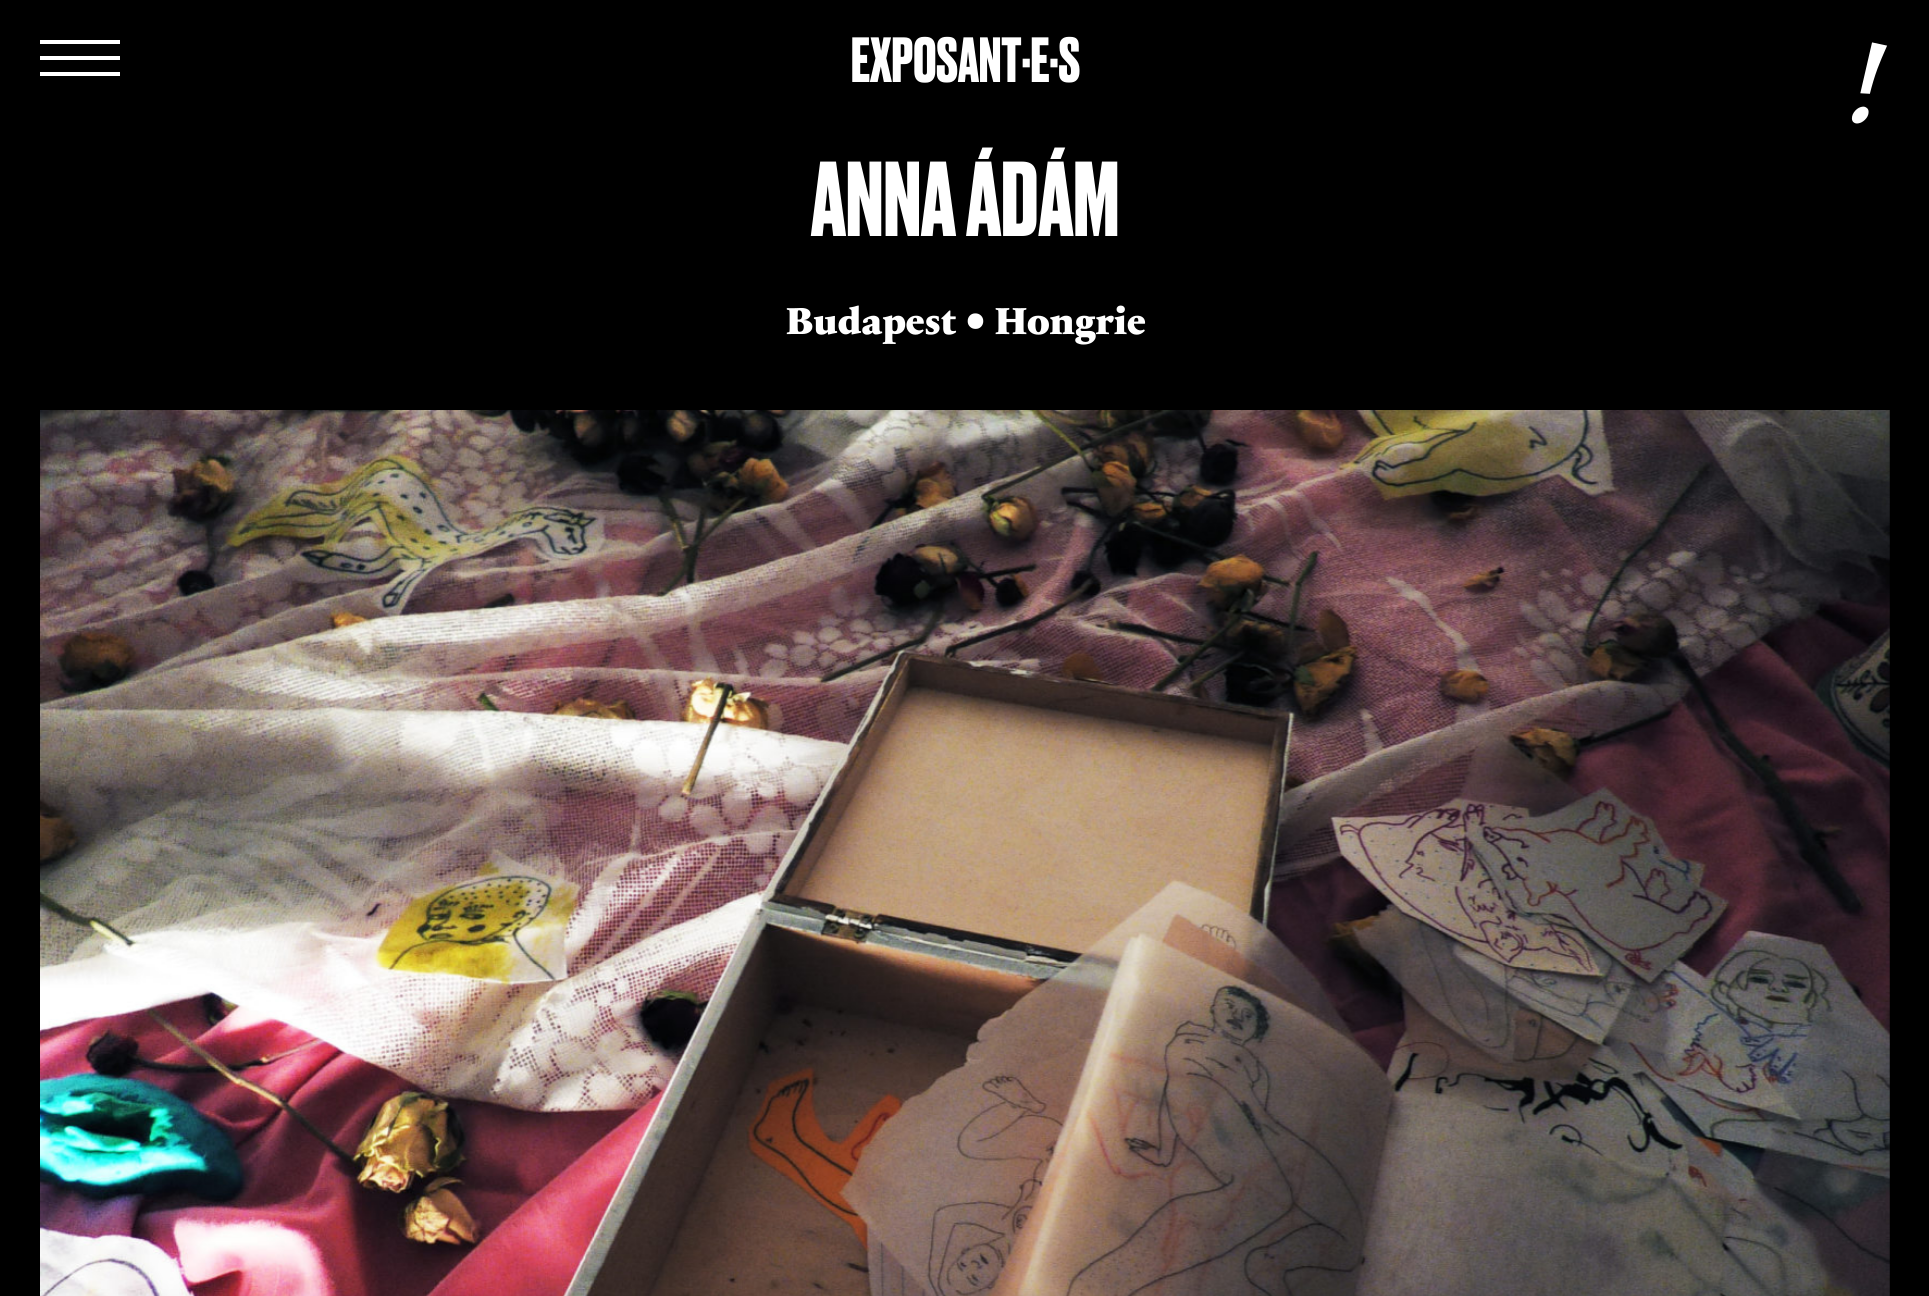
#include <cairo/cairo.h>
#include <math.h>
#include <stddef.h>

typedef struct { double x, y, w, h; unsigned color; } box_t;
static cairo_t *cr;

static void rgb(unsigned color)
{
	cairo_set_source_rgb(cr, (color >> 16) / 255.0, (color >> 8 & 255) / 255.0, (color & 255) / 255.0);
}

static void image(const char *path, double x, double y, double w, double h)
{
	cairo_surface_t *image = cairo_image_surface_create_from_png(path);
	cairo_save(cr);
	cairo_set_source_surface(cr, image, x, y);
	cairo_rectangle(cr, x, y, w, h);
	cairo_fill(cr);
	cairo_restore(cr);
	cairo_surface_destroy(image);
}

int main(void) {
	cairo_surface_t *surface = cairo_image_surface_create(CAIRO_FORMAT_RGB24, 1929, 1296);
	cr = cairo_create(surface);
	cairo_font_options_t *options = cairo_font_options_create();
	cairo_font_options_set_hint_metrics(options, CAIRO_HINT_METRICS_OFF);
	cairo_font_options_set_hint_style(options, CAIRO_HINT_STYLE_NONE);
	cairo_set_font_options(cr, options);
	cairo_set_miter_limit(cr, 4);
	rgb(0x000000);
	cairo_paint(cr);
	{
		static const box_t items[] = {
			{40, 40, 80, 4, 0xffffff},
			{40, 72, 80, 4, 0xffffff},
			{40, 56, 80, 4, 0xffffff},
		};
		for (size_t i = 0; i < sizeof items / sizeof *items; i++) {
			rgb(items[i].color);
			cairo_rectangle(cr, items[i].x, items[i].y, items[i].w, items[i].h);
			cairo_fill(cr);
		}
	}
	image("img/1.png", 786, 305, 360, 40);
	image("img/2.png", 40, 410, 1850, 886);
	image("img/3.png", 1851, 42, 37, 82);
	cairo_select_font_face(cr, "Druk", CAIRO_FONT_SLANT_NORMAL, CAIRO_FONT_WEIGHT_BOLD);
	cairo_set_font_size(cr, 60);
	cairo_move_to(cr, 851, 82);
	cairo_show_text(cr, "EXPOSANT·E·S");
	cairo_set_font_size(cr, 100);
	cairo_move_to(cr, 811, 236);
	cairo_show_text(cr, "ANNA ÁDÁM");
	cairo_surface_write_to_png(surface, "page.png");
	cairo_font_options_destroy(options);
	cairo_destroy(cr);
	cairo_surface_destroy(surface);
	return 0;
}
